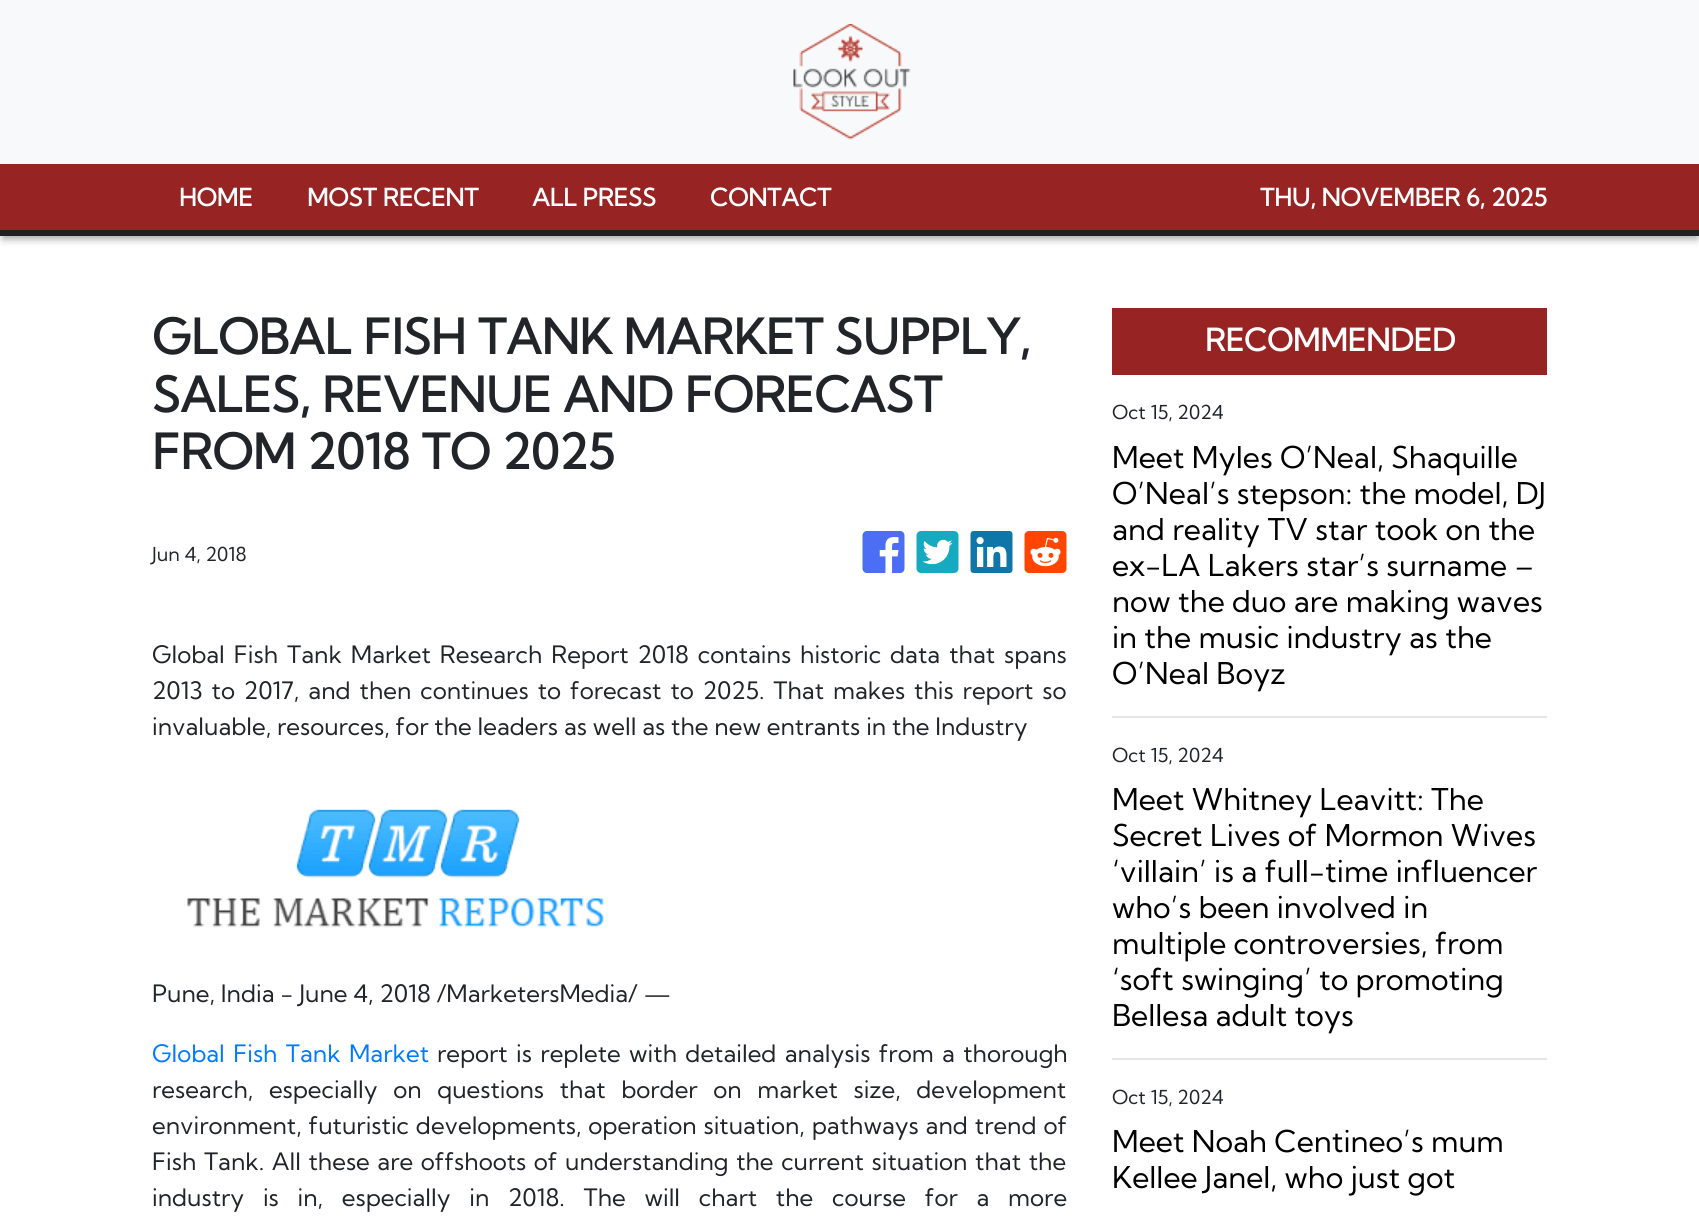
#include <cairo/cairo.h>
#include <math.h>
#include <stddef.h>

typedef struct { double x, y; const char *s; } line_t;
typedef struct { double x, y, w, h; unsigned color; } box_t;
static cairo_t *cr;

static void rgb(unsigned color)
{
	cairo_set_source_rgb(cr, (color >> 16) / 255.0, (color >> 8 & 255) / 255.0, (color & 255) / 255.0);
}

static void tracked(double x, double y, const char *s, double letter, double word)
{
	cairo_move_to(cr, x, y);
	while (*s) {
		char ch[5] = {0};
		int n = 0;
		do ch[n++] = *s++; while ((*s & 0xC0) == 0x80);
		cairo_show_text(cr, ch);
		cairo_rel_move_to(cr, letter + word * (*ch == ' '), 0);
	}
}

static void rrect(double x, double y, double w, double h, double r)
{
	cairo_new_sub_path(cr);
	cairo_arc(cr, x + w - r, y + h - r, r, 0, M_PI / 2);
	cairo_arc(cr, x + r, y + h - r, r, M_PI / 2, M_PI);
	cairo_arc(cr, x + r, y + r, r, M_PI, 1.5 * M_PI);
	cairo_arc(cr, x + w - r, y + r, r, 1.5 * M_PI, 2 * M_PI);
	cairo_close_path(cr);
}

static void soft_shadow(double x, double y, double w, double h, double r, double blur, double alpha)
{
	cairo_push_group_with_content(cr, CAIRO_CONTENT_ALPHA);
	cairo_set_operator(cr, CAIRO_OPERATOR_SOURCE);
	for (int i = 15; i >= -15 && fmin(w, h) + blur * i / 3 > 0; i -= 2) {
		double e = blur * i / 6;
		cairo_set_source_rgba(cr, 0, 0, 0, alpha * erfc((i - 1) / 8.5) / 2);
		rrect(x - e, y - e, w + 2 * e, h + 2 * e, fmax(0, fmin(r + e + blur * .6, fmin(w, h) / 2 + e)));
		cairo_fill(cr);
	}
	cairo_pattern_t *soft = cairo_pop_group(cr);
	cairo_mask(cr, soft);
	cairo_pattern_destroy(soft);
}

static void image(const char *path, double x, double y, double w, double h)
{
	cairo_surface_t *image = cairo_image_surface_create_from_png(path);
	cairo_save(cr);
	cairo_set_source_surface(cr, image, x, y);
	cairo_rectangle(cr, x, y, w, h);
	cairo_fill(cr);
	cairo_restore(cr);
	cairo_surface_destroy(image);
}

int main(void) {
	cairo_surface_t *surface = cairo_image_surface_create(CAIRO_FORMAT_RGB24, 1699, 1216);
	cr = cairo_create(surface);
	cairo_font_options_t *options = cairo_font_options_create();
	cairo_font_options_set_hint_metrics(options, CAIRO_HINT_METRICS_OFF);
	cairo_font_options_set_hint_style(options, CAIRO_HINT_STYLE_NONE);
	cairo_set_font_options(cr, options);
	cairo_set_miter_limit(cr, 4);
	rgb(0xffffff);
	cairo_paint(cr);
	rgb(0xf8f9fa);
	cairo_rectangle(cr, 0, 0, 1699, 164);
	cairo_fill(cr);
	image("img/1.png", 793, 24, 118, 116);
	rgb(0x000000);
	soft_shadow(3, 173, 1694, 66, 0, 4, 0.35);
	rgb(0x972323);
	cairo_rectangle(cr, 0, 164, 1699, 66);
	cairo_fill(cr);
	rgb(0x212121);
	cairo_rectangle(cr, 0, 230, 1699, 6);
	cairo_fill(cr);
	image("img/2.png", 862, 531, 43, 42);
	image("img/3.png", 916, 531, 43, 42);
	image("img/4.png", 970, 531, 43, 42);
	image("img/5.png", 1024, 531, 43, 42);
	image("img/6.png", 187, 809, 418, 119);
	{
		static const box_t items[] = {
			{1112, 308, 435, 67, 0x972323},
			{1112, 716, 435, 2, 0xe6e6e6},
			{1112, 1058, 435, 2, 0xe6e6e6},
		};
		for (size_t i = 0; i < sizeof items / sizeof *items; i++) {
			rgb(items[i].color);
			cairo_rectangle(cr, items[i].x, items[i].y, items[i].w, items[i].h);
			cairo_fill(cr);
		}
	}
	cairo_select_font_face(cr, "Kumbh Sans", CAIRO_FONT_SLANT_NORMAL, CAIRO_FONT_WEIGHT_BOLD);
	cairo_set_font_size(cr, 24);
	rgb(0xffffff);
	{
		static const line_t items[] = {
			{179, 206, "HOME"},
			{307, 206, "MOST RECENT"},
			{532, 206, "ALL PRESS"},
			{710, 206, "CONTACT"},
			{1260, 206, "THU, NOVEMBER 6, 2025"},
		};
		for (size_t i = 0; i < sizeof items / sizeof *items; i++) {
			cairo_move_to(cr, items[i].x, items[i].y);
			cairo_show_text(cr, items[i].s);
		}
	}
	cairo_set_font_size(cr, 48);
	rgb(0x212529);
	{
		static const line_t items[] = {
			{152, 354, "GLOBAL FISH TANK MARKET SUPPLY,"},
			{152, 412, "SALES, REVENUE AND FORECAST"},
			{152, 469, "FROM 2018 TO 2025"},
		};
		for (size_t i = 0; i < sizeof items / sizeof *items; i++) {
			cairo_move_to(cr, items[i].x, items[i].y);
			cairo_show_text(cr, items[i].s);
		}
	}
	cairo_select_font_face(cr, "Kumbh Sans", CAIRO_FONT_SLANT_NORMAL, CAIRO_FONT_WEIGHT_NORMAL);
	cairo_set_font_size(cr, 19.25);
	cairo_move_to(cr, 152, 561);
	cairo_show_text(cr, "Jun 4, 2018");
	cairo_set_font_size(cr, 24);
	tracked(152, 663, "Global Fish Tank Market Research Report 2018 contains historic data that spans", 0, 3.1);
	tracked(152, 699, "2013 to 2017, and then continues to forecast to 2025. That makes this report so", 0, 3.1);
	cairo_move_to(cr, 152, 735);
	cairo_show_text(cr, "invaluable, resources, for the leaders as well as the new entrants in the Industry");
	cairo_move_to(cr, 152, 1002);
	cairo_show_text(cr, "Pune, India - June 4, 2018 /MarketersMedia/ —");
	rgb(0x007bff);
	tracked(152, 1062, "Global Fish Tank Market", 0, 2.5);
	rgb(0x212529);
	tracked(437, 1062, "report is replete with detailed analysis from a thorough", 0, 2.5);
	tracked(152, 1098, "research, especially on questions that border on market size, development", 0, 9.75);
	tracked(152, 1134, "environment, futuristic developments, operation situation, pathways and trend of", 0, 1);
	tracked(152, 1170, "Fish Tank. All these are offshoots of understanding the current situation that the", 0, 1.75);
	tracked(152, 1206, "industry is in, especially in 2018. The will chart the course for a more", 0, 12.9);
	cairo_select_font_face(cr, "Kumbh Sans", CAIRO_FONT_SLANT_NORMAL, CAIRO_FONT_WEIGHT_BOLD);
	cairo_set_font_size(cr, 30.75);
	rgb(0xffffff);
	cairo_move_to(cr, 1205, 351);
	cairo_show_text(cr, "RECOMMENDED");
	cairo_select_font_face(cr, "Kumbh Sans", CAIRO_FONT_SLANT_NORMAL, CAIRO_FONT_WEIGHT_NORMAL);
	cairo_set_font_size(cr, 19.25);
	rgb(0x212529);
	cairo_move_to(cr, 1112, 419);
	cairo_show_text(cr, "Oct 15, 2024");
	cairo_set_font_size(cr, 30);
	rgb(0x000000);
	{
		static const line_t items[] = {
			{1112, 468, "Meet Myles O’Neal, Shaquille"},
			{1112, 504, "O’Neal’s stepson: the model, DJ"},
			{1112, 540, "and reality TV star took on the"},
			{1112, 576, "ex-LA Lakers star’s surname –"},
			{1112, 612, "now the duo are making waves"},
			{1112, 648, "in the music industry as the"},
			{1112, 684, "O’Neal Boyz"},
		};
		for (size_t i = 0; i < sizeof items / sizeof *items; i++) {
			cairo_move_to(cr, items[i].x, items[i].y);
			cairo_show_text(cr, items[i].s);
		}
	}
	cairo_set_font_size(cr, 19.25);
	rgb(0x212529);
	cairo_move_to(cr, 1112, 762);
	cairo_show_text(cr, "Oct 15, 2024");
	cairo_set_font_size(cr, 30);
	rgb(0x000000);
	{
		static const line_t items[] = {
			{1112, 810, "Meet Whitney Leavitt: The"},
			{1112, 846, "Secret Lives of Mormon Wives"},
			{1112, 882, "‘villain’ is a full-time influencer"},
			{1112, 918, "who’s been involved in"},
			{1112, 954, "multiple controversies, from"},
			{1112, 990, "‘soft swinging’ to promoting"},
			{1112, 1026, "Bellesa adult toys"},
		};
		for (size_t i = 0; i < sizeof items / sizeof *items; i++) {
			cairo_move_to(cr, items[i].x, items[i].y);
			cairo_show_text(cr, items[i].s);
		}
	}
	cairo_set_font_size(cr, 19.25);
	rgb(0x212529);
	cairo_move_to(cr, 1112, 1104);
	cairo_show_text(cr, "Oct 15, 2024");
	cairo_set_font_size(cr, 30);
	rgb(0x000000);
	cairo_move_to(cr, 1112, 1152);
	cairo_show_text(cr, "Meet Noah Centineo’s mum");
	cairo_move_to(cr, 1112, 1188);
	cairo_show_text(cr, "Kellee Janel, who just got");
	cairo_surface_write_to_png(surface, "page.png");
	cairo_font_options_destroy(options);
	cairo_destroy(cr);
	cairo_surface_destroy(surface);
	return 0;
}
